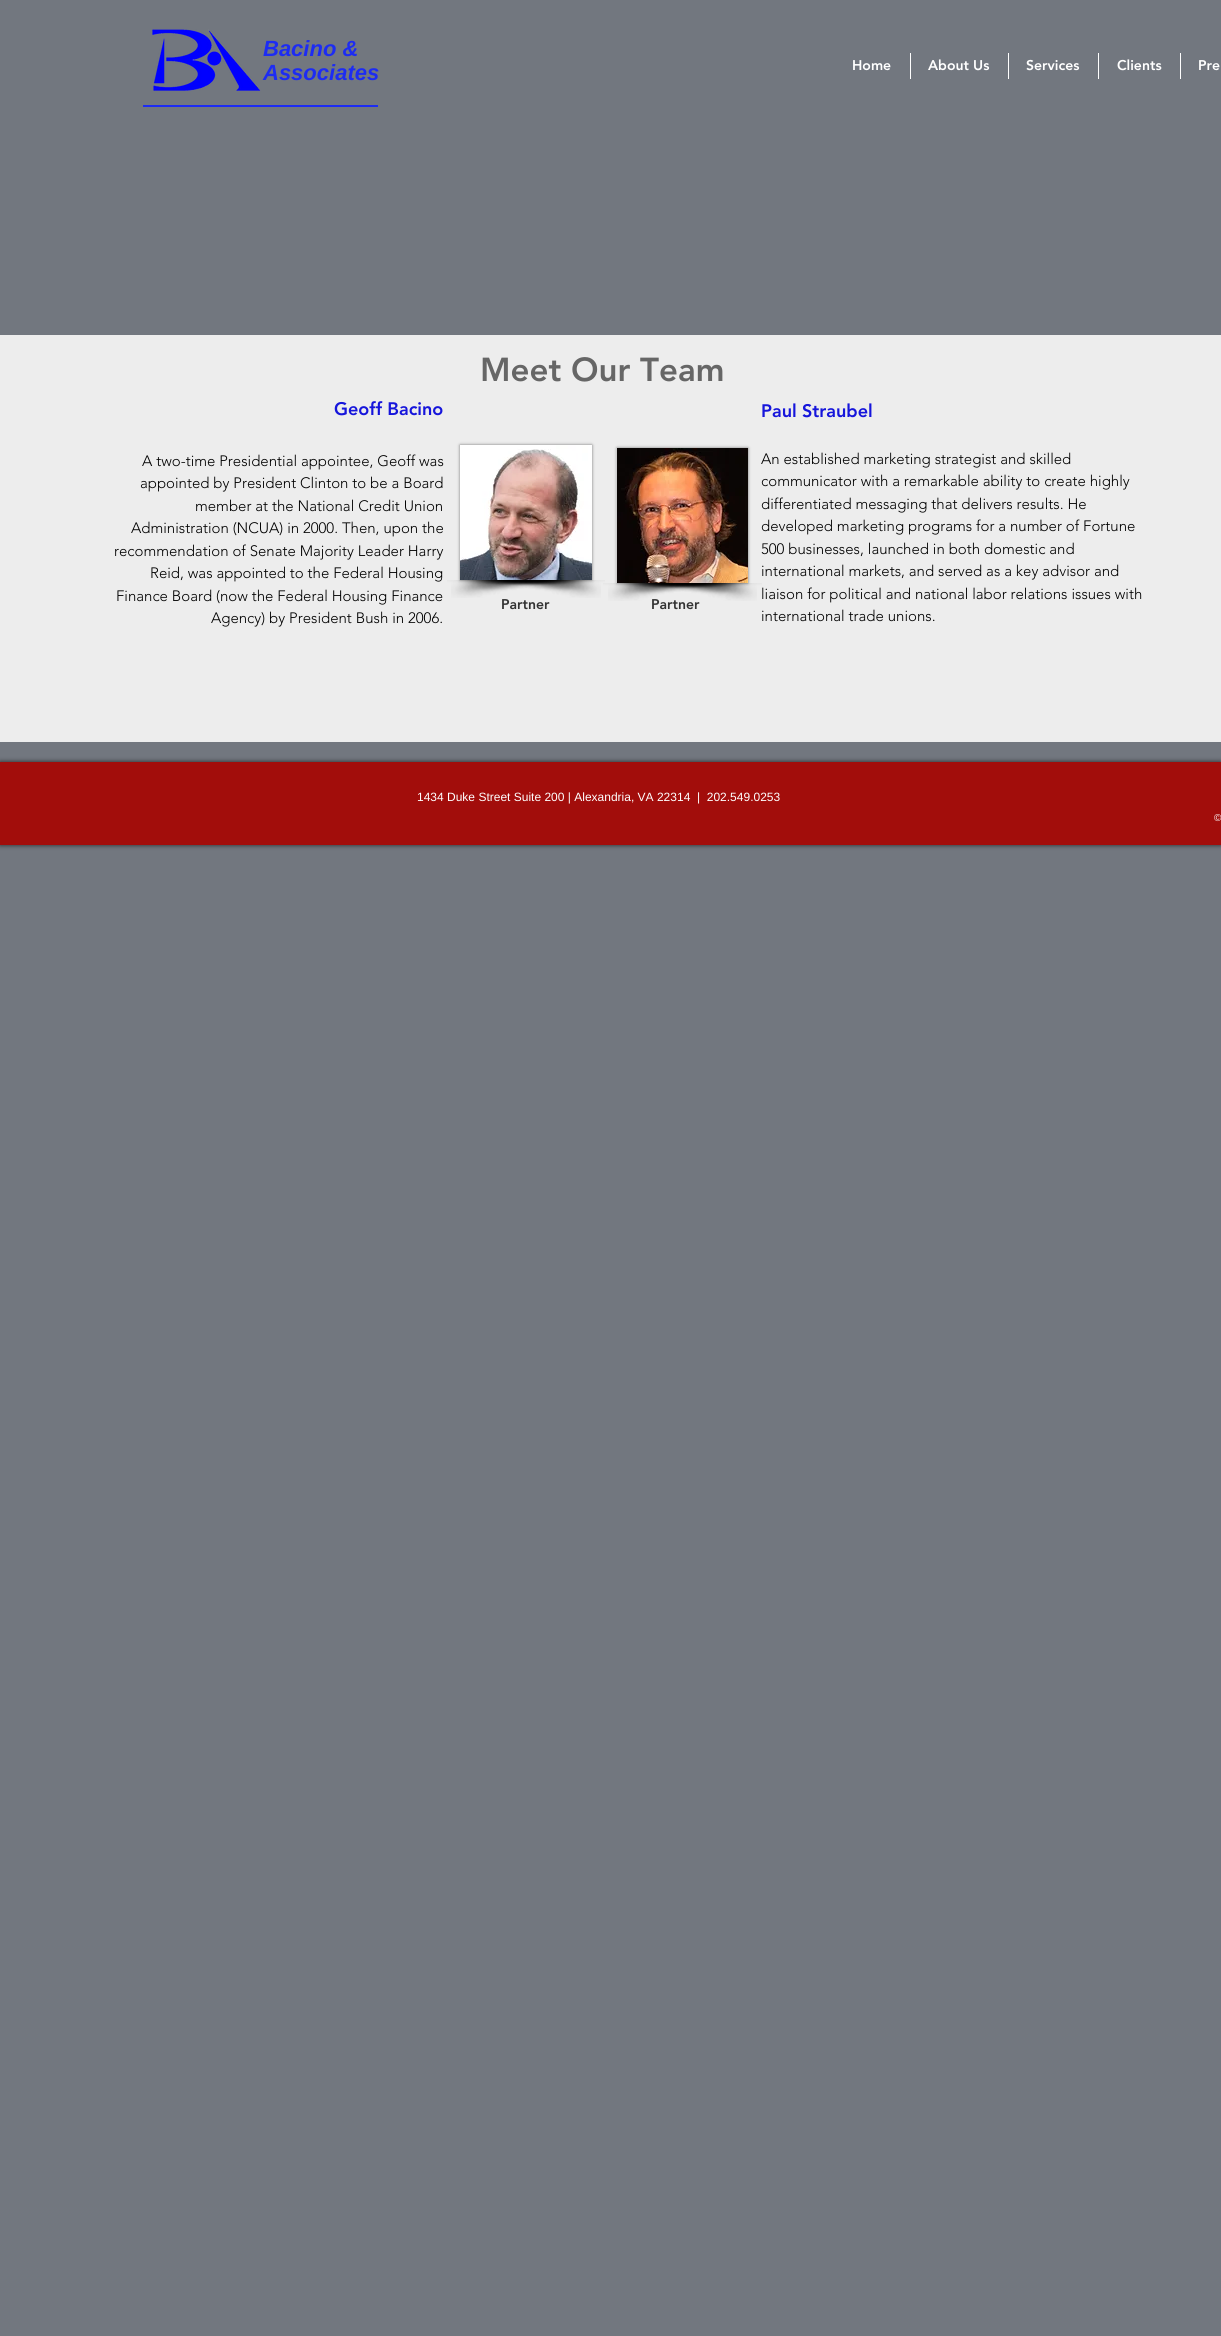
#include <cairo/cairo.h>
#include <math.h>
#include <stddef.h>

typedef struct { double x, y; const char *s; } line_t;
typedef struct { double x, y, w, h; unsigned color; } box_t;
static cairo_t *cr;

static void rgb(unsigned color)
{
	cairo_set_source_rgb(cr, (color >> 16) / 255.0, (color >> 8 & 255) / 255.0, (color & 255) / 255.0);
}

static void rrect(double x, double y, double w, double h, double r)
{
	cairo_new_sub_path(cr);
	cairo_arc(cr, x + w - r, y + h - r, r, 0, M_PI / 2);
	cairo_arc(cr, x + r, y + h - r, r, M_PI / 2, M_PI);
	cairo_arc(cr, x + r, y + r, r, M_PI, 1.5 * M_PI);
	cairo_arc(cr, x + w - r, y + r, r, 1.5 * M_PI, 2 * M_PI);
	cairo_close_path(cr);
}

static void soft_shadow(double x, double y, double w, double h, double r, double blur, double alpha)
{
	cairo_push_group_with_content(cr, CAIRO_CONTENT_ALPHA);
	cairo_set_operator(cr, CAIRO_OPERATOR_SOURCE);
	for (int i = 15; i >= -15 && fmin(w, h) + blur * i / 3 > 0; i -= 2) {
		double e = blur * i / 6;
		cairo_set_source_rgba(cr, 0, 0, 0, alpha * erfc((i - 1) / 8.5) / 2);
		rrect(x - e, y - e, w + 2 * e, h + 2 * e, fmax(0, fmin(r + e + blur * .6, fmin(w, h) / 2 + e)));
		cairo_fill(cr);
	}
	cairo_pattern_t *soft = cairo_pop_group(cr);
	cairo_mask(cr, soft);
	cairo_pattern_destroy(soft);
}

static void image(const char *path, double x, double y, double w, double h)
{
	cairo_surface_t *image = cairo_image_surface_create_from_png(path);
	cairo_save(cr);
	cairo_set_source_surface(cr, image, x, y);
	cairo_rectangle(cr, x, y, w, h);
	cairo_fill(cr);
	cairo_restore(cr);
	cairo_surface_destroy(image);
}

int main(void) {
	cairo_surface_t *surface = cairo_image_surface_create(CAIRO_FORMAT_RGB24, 1221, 2336);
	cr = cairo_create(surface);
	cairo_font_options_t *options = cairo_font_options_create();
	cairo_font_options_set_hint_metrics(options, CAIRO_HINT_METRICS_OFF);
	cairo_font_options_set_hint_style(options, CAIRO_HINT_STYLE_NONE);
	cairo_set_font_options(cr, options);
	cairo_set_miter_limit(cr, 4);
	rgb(0x72777f);
	cairo_paint(cr);
	image("img/1.png", 152, 29, 109, 62);
	{
		static const box_t items[] = {
			{910, 53, 1, 26, 0xffffff},
			{1008, 53, 1, 26, 0xffffff},
			{1098, 53, 1, 26, 0xffffff},
			{1180, 53, 1, 26, 0xffffff},
			{143, 105, 235, 2, 0x1d2cf3},
			{0, 335, 1221, 407, 0xededed},
		};
		for (size_t i = 0; i < sizeof items / sizeof *items; i++) {
			rgb(items[i].color);
			cairo_rectangle(cr, items[i].x, items[i].y, items[i].w, items[i].h);
			cairo_fill(cr);
		}
	}
	rgb(0x000000);
	soft_shadow(460, 445, 132, 135, 0, 1.5, 0.5);
	image("img/2.png", 460, 445, 132, 135);
	image("img/4.png", 451, 580, 154, 18);
	image("img/3.png", 447, 580, 154, 18);
	rgb(0xffffff);
	cairo_rectangle(cr, 616, 448, 1, 135);
	cairo_fill(cr);
	rgb(0x000000);
	soft_shadow(617, 448, 131, 135, 0, 1.5, 0.5);
	image("img/5.png", 617, 448, 131, 135);
	image("img/7.png", 608, 583, 154, 18);
	image("img/6.png", 603, 583, 154, 18);
	soft_shadow(0, 762, 1221, 83, 0, 2.5, 0.7);
	rgb(0xa20d0b);
	cairo_rectangle(cr, 0, 762, 1221, 83);
	cairo_fill(cr);
	cairo_select_font_face(cr, "Liberation Sans", CAIRO_FONT_SLANT_ITALIC, CAIRO_FONT_WEIGHT_BOLD);
	cairo_set_font_size(cr, 22);
	rgb(0x1d2cf3);
	cairo_move_to(cr, 263, 56);
	cairo_show_text(cr, "Bacino &");
	cairo_move_to(cr, 263, 80);
	cairo_show_text(cr, "Associates");
	cairo_select_font_face(cr, "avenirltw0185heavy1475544 Black", CAIRO_FONT_SLANT_NORMAL, CAIRO_FONT_WEIGHT_NORMAL);
	cairo_set_font_size(cr, 14);
	rgb(0xffffff);
	{
		static const line_t items[] = {
			{852, 70, "Home"},
			{928, 70, "About Us"},
			{1026, 70, "Services"},
			{1117, 70, "Clients"},
			{1198, 70, "Pre"},
		};
		for (size_t i = 0; i < sizeof items / sizeof *items; i++) {
			cairo_move_to(cr, items[i].x, items[i].y);
			cairo_show_text(cr, items[i].s);
		}
	}
	cairo_set_font_size(cr, 33);
	rgb(0x666666);
	cairo_move_to(cr, 480, 381);
	cairo_show_text(cr, "Meet Our Team");
	cairo_set_font_size(cr, 18);
	rgb(0x1615db);
	cairo_move_to(cr, 334, 415);
	cairo_show_text(cr, "Geoff Bacino");
	cairo_select_font_face(cr, "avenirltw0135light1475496 Light", CAIRO_FONT_SLANT_NORMAL, CAIRO_FONT_WEIGHT_NORMAL);
	cairo_set_font_size(cr, 15);
	rgb(0x000000);
	{
		static const line_t items[] = {
			{142, 466, "A two-time Presidential appointee, Geoff was"},
			{140, 488, "appointed by President Clinton to be a Board"},
			{195, 511, "member at the National Credit Union"},
			{131, 533, "Administration (NCUA) in 2000. Then, upon the"},
			{114, 556, "recommendation of Senate Majority Leader Harry"},
			{150, 578, "Reid, was appointed to the Federal Housing"},
			{116, 601, "Finance Board (now the Federal Housing Finance"},
			{211, 623, "Agency) by President Bush in 2006."},
		};
		for (size_t i = 0; i < sizeof items / sizeof *items; i++) {
			cairo_move_to(cr, items[i].x, items[i].y);
			cairo_show_text(cr, items[i].s);
		}
	}
	cairo_select_font_face(cr, "avenirltw0185heavy1475544 Black", CAIRO_FONT_SLANT_NORMAL, CAIRO_FONT_WEIGHT_NORMAL);
	cairo_set_font_size(cr, 18);
	rgb(0x1615db);
	cairo_move_to(cr, 761, 417);
	cairo_show_text(cr, "Paul Straubel");
	cairo_select_font_face(cr, "avenirltw0135light1475496 Light", CAIRO_FONT_SLANT_NORMAL, CAIRO_FONT_WEIGHT_NORMAL);
	cairo_set_font_size(cr, 15);
	rgb(0x000000);
	{
		static const line_t items[] = {
			{761, 464, "An established marketing strategist and skilled"},
			{761, 486, "communicator with a remarkable ability to create highly"},
			{761, 509, "differentiated messaging that delivers results. He"},
			{761, 531, "developed marketing programs for a number of Fortune"},
			{761, 554, "500 businesses, launched in both domestic and"},
			{761, 576, "international markets, and served as a key advisor and"},
			{761, 599, "liaison for political and national labor relations issues with"},
			{761, 621, "international trade unions."},
		};
		for (size_t i = 0; i < sizeof items / sizeof *items; i++) {
			cairo_move_to(cr, items[i].x, items[i].y);
			cairo_show_text(cr, items[i].s);
		}
	}
	cairo_select_font_face(cr, "avenirltw0185heavy1475544 Black", CAIRO_FONT_SLANT_NORMAL, CAIRO_FONT_WEIGHT_NORMAL);
	cairo_set_font_size(cr, 14);
	rgb(0x333333);
	cairo_move_to(cr, 501, 609);
	cairo_show_text(cr, "Partner");
	cairo_move_to(cr, 651, 609);
	cairo_show_text(cr, "Partner");
	cairo_select_font_face(cr, "Liberation Sans", CAIRO_FONT_SLANT_NORMAL, CAIRO_FONT_WEIGHT_NORMAL);
	cairo_set_font_size(cr, 12);
	rgb(0xffffff);
	cairo_move_to(cr, 417, 801);
	cairo_show_text(cr, "1434 Duke Street Suite 200 | Alexandria, VA 22314  |  202.549.0253");
	cairo_set_font_size(cr, 10);
	cairo_move_to(cr, 1214, 821);
	cairo_show_text(cr, "©");
	cairo_surface_write_to_png(surface, "page.png");
	cairo_font_options_destroy(options);
	cairo_destroy(cr);
	cairo_surface_destroy(surface);
	return 0;
}
